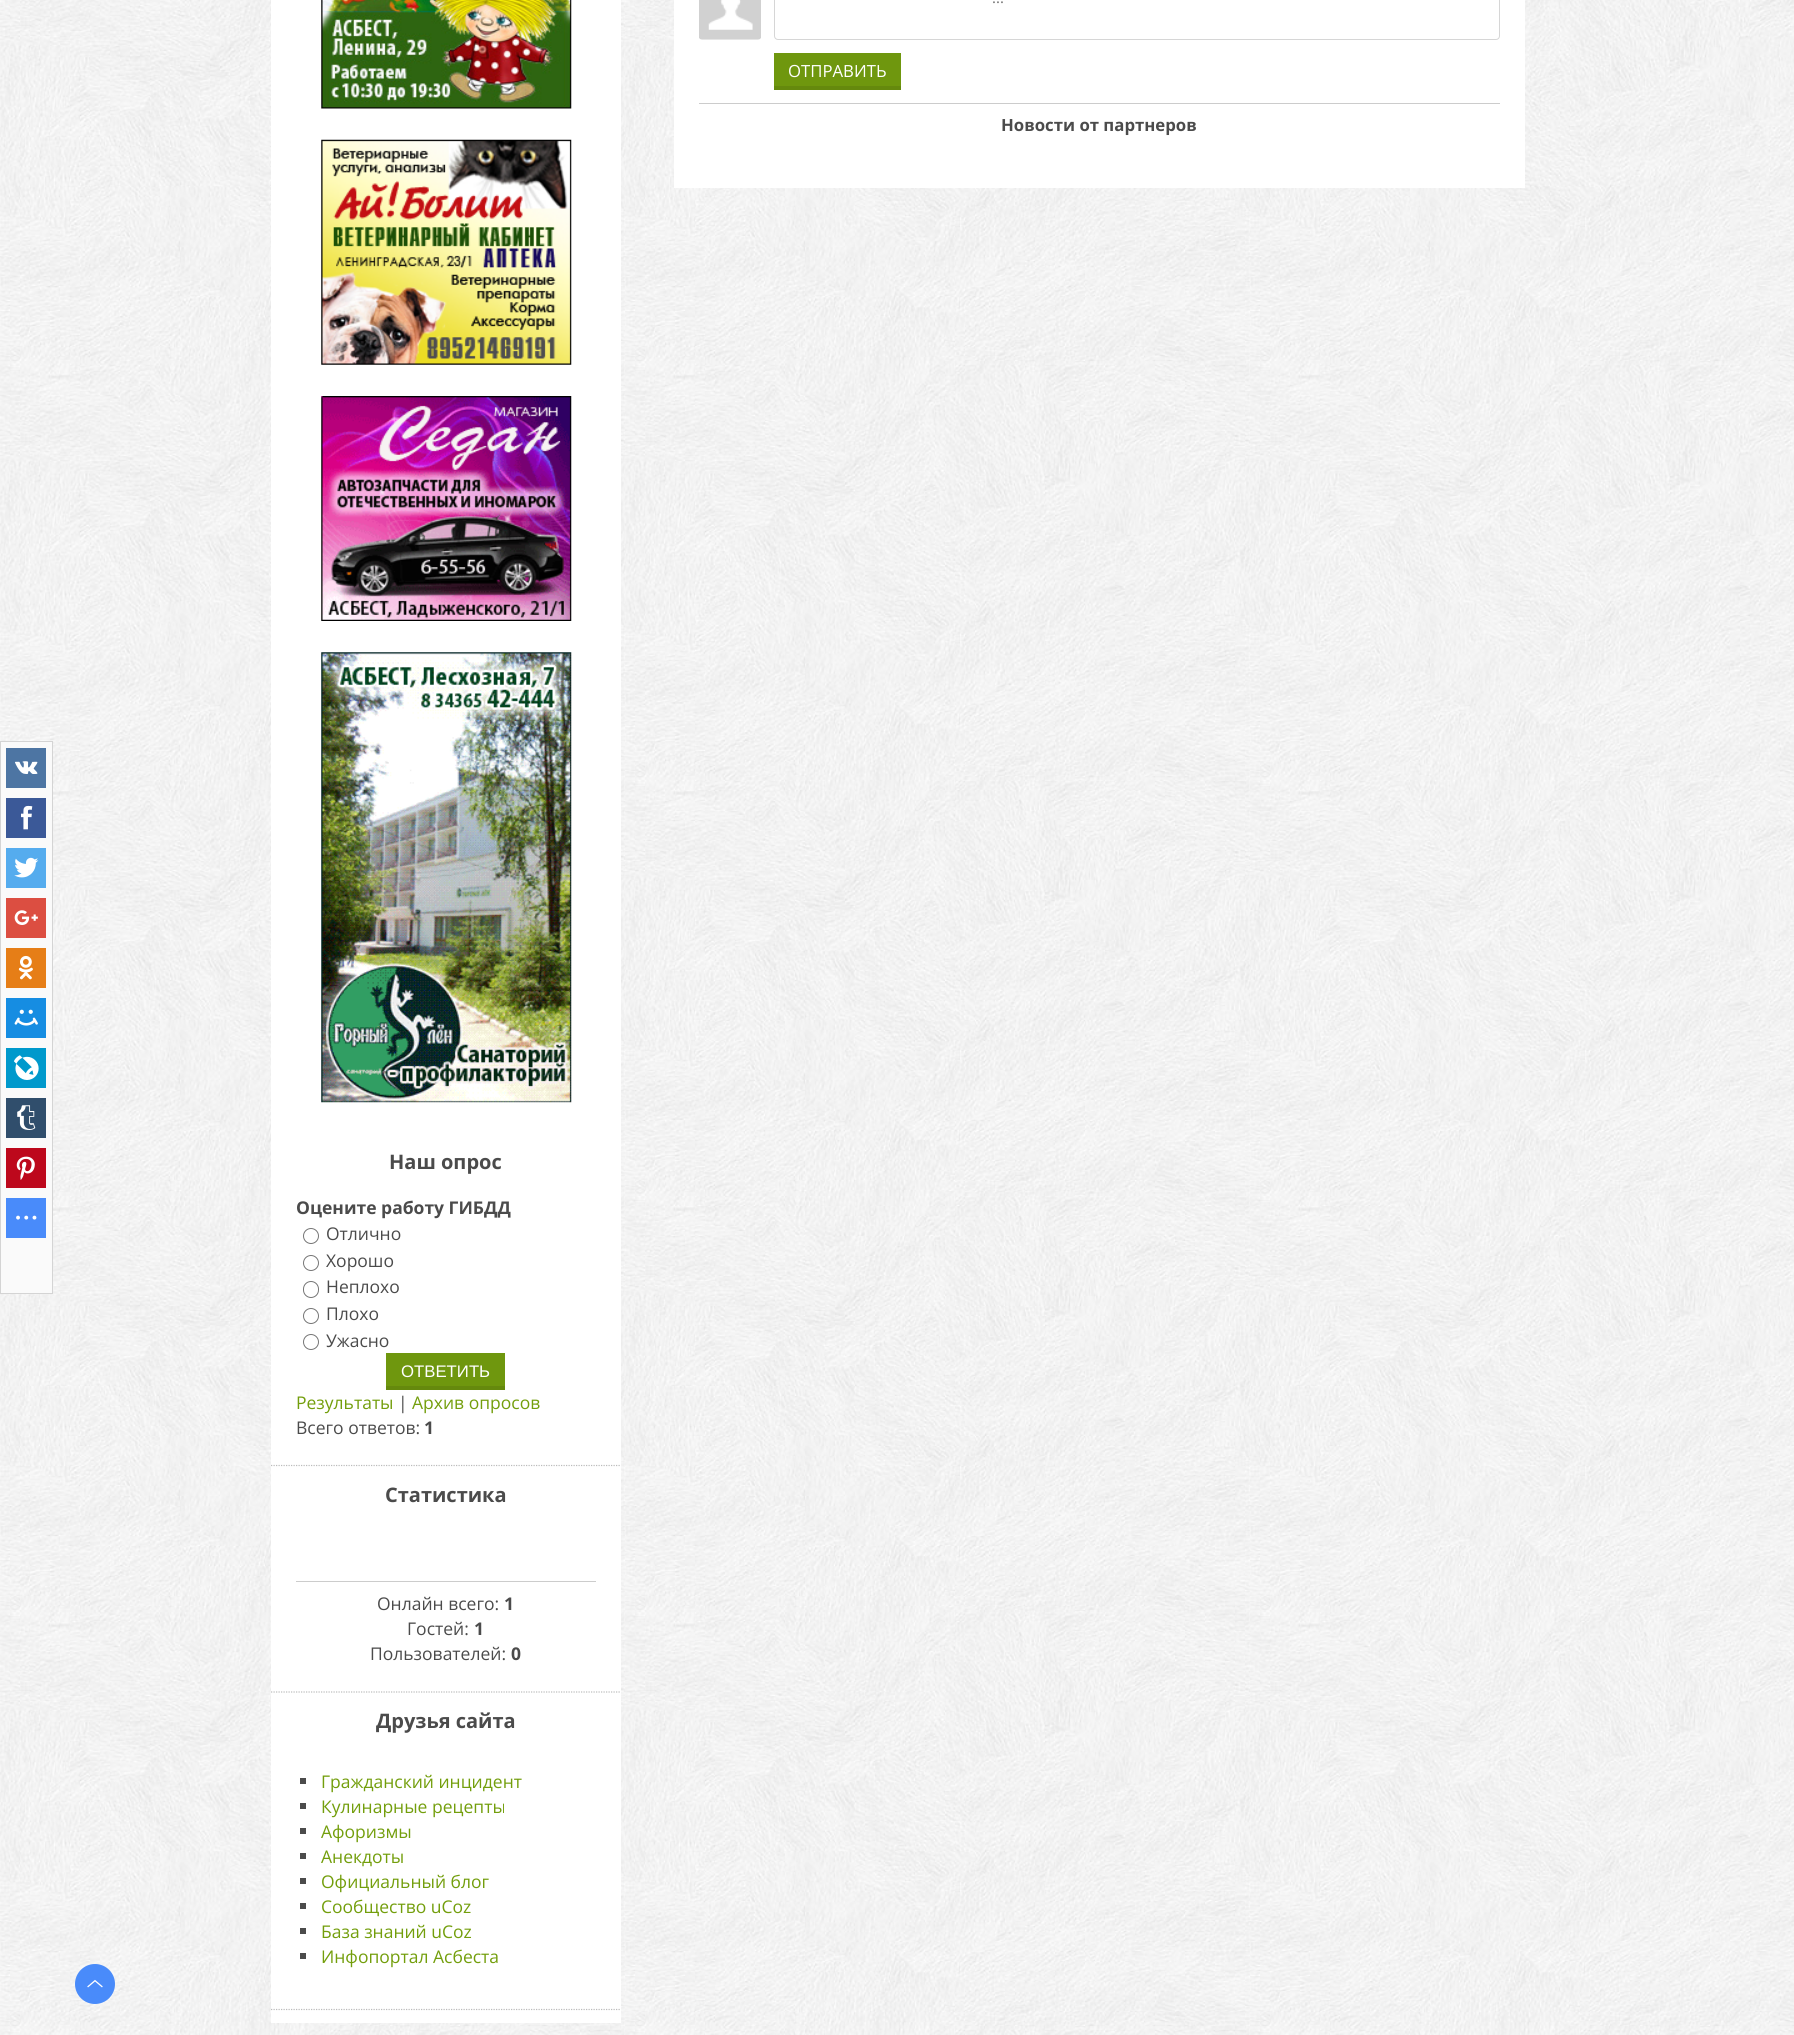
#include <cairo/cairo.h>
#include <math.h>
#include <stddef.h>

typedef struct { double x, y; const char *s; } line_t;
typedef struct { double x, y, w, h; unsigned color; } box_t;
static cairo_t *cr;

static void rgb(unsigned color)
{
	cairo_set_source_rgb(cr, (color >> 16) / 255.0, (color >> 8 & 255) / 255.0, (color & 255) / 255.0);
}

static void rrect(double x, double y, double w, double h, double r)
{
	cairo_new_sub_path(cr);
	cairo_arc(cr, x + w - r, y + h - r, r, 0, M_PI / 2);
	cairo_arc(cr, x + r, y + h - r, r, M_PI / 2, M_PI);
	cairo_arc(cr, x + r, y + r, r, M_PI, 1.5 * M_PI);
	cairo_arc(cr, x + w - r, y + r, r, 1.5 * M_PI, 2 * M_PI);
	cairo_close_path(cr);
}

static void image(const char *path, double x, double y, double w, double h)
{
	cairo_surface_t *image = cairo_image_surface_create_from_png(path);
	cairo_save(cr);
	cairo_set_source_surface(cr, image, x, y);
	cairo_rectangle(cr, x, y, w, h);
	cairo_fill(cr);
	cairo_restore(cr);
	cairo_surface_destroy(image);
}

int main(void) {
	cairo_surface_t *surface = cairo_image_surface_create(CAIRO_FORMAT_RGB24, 1794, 2035);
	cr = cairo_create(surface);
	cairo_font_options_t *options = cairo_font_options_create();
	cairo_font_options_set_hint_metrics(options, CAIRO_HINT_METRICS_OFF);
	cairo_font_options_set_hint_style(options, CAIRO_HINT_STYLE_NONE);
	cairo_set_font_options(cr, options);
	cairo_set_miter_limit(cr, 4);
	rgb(0xffffff);
	cairo_paint(cr);
	image("img/1.png", 0, 0, 1794, 2035);
	rgb(0xfafafa);
	cairo_rectangle(cr, 0.5, 741.5, 52, 552);
	cairo_fill_preserve(cr);
	rgb(0xd4d4d4);
	cairo_set_line_width(cr, 1);
	cairo_stroke(cr);
	rgb(0x4d75a3);
	cairo_rectangle(cr, 6, 748, 40, 40);
	cairo_fill(cr);
	image("img/2.png", 15, 761, 23, 13);
	rgb(0x3b5998);
	cairo_rectangle(cr, 6, 798, 40, 40);
	cairo_fill(cr);
	image("img/3.png", 21, 805, 12, 25);
	rgb(0x55acee);
	cairo_rectangle(cr, 6, 848, 40, 40);
	cairo_fill(cr);
	image("img/4.png", 14, 857, 25, 21);
	rgb(0xdc4e41);
	cairo_rectangle(cr, 6, 898, 40, 40);
	cairo_fill(cr);
	image("img/5.png", 14, 910, 24, 15);
	rgb(0xe67e17);
	cairo_rectangle(cr, 6, 948, 40, 40);
	cairo_fill(cr);
	image("img/6.png", 18, 955, 15, 25);
	rgb(0x168de2);
	cairo_rectangle(cr, 6, 998, 40, 40);
	cairo_fill(cr);
	image("img/7.png", 14, 1009, 24, 17);
	rgb(0x0099cc);
	cairo_rectangle(cr, 6, 1048, 40, 40);
	cairo_fill(cr);
	image("img/8.png", 13, 1055, 26, 25);
	rgb(0x304e6c);
	cairo_rectangle(cr, 6, 1098, 40, 40);
	cairo_fill(cr);
	image("img/9.png", 17, 1105, 19, 25);
	rgb(0xbd081c);
	cairo_rectangle(cr, 6, 1148, 40, 40);
	cairo_fill(cr);
	image("img/10.png", 16, 1156, 19, 24);
	rgb(0x498bfa);
	cairo_rectangle(cr, 6, 1198, 40, 40);
	cairo_fill(cr);
	image("img/11.png", 16, 1215, 21, 5);
	cairo_arc(cr, 95, 1984, 20, 0, 2 * M_PI);
	cairo_fill(cr);
	image("img/12.png", 87, 1979, 16, 9);
	rgb(0xffffff);
	cairo_rectangle(cr, 674, 0, 851, 188);
	cairo_fill(cr);
	image("img/13.png", 699, 0, 62, 40);
	rrect(774.5, -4.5, 725, 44, 3.5);
	rgb(0xd6d6d6);
	cairo_stroke(cr);
	{
		static const box_t items[] = {
			{774, 53, 127, 33, 0x6f970e},
			{774, 86, 127, 4, 0x65890d},
			{699, 103, 801, 1, 0xcccccc},
			{271, 0, 350, 2023, 0xffffff},
		};
		for (size_t i = 0; i < sizeof items / sizeof *items; i++) {
			rgb(items[i].color);
			cairo_rectangle(cr, items[i].x, items[i].y, items[i].w, items[i].h);
			cairo_fill(cr);
		}
	}
	image("img/14.png", 321, 0, 251, 109);
	image("img/15.png", 321, 139, 251, 226);
	image("img/16.png", 321, 396, 251, 225);
	image("img/17.png", 321, 652, 251, 451);
	cairo_new_path(cr);
	cairo_move_to(cr, 271, 1465.5);
	cairo_line_to(cr, 621, 1465.5);
	rgb(0xbbbbbb);
	cairo_set_line_width(cr, 1.2);
	cairo_set_dash(cr, (double[]){1.25, 1.25}, 2, 0);
	cairo_stroke(cr);
	cairo_arc(cr, 311, 1236, 7.5, 0, 2 * M_PI);
	rgb(0x767676);
	cairo_set_line_width(cr, 1);
	cairo_set_dash(cr, NULL, 0, 0);
	cairo_stroke(cr);
	cairo_arc(cr, 311, 1263, 7.5, 0, 2 * M_PI);
	cairo_stroke(cr);
	rrect(303.5, 1281.5, 15, 16, 7.5);
	cairo_stroke(cr);
	cairo_arc(cr, 311, 1316, 7.5, 0, 2 * M_PI);
	cairo_stroke(cr);
	cairo_arc(cr, 311, 1342, 7.5, 0, 2 * M_PI);
	cairo_stroke(cr);
	rgb(0x6f970e);
	cairo_rectangle(cr, 386, 1353, 119, 33);
	cairo_fill(cr);
	rgb(0x65890d);
	cairo_rectangle(cr, 386, 1386, 119, 4);
	cairo_fill(cr);
	cairo_new_path(cr);
	cairo_move_to(cr, 271, 1692);
	cairo_line_to(cr, 621, 1692);
	rgb(0xbbbbbb);
	cairo_set_line_width(cr, 1.2);
	cairo_set_dash(cr, (double[]){1.25, 1.25}, 2, 0);
	cairo_stroke(cr);
	rgb(0xcccccc);
	cairo_rectangle(cr, 296, 1581, 300, 1);
	cairo_fill(cr);
	cairo_new_path(cr);
	cairo_move_to(cr, 271, 2009.5);
	cairo_line_to(cr, 621, 2009.5);
	rgb(0xbbbbbb);
	cairo_stroke(cr);
	{
		static const box_t items[] = {
			{300, 1778, 6, 6, 0x4b4b4b},
			{300, 1803, 6, 6, 0x4b4b4b},
			{300, 1828, 6, 6, 0x4b4b4b},
			{300, 1853, 6, 6, 0x4b4b4b},
			{300, 1878, 6, 6, 0x4b4b4b},
			{300, 1903, 6, 6, 0x4b4b4b},
			{300, 1928, 6, 6, 0x4b4b4b},
			{300, 1953, 6, 6, 0x4b4b4b},
		};
		for (size_t i = 0; i < sizeof items / sizeof *items; i++) {
			rgb(items[i].color);
			cairo_rectangle(cr, items[i].x, items[i].y, items[i].w, items[i].h);
			cairo_fill(cr);
		}
	}
	cairo_select_font_face(cr, "Open Sans", CAIRO_FONT_SLANT_NORMAL, CAIRO_FONT_WEIGHT_NORMAL);
	cairo_set_font_size(cr, 15);
	rgb(0x757575);
	cairo_move_to(cr, 992, 3);
	cairo_show_text(cr, "...");
	cairo_set_font_size(cr, 16.75);
	rgb(0xffffff);
	cairo_move_to(cr, 788, 77);
	cairo_show_text(cr, "ОТПРАВИТЬ");
	cairo_select_font_face(cr, "Open Sans", CAIRO_FONT_SLANT_NORMAL, CAIRO_FONT_WEIGHT_BOLD);
	rgb(0x4b4b4b);
	cairo_move_to(cr, 1001, 131);
	cairo_show_text(cr, "Новости от партнеров");
	cairo_set_font_size(cr, 20);
	cairo_move_to(cr, 389, 1169);
	cairo_show_text(cr, "Наш опрос");
	cairo_set_font_size(cr, 17.5);
	cairo_move_to(cr, 296, 1214);
	cairo_show_text(cr, "Оцените работу ГИБДД");
	cairo_select_font_face(cr, "Open Sans", CAIRO_FONT_SLANT_NORMAL, CAIRO_FONT_WEIGHT_NORMAL);
	{
		static const line_t items[] = {
			{326, 1240, "Отлично"},
			{326, 1267, "Хорошо"},
			{326, 1293, "Неплохо"},
			{326, 1320, "Плохо"},
			{326, 1347, "Ужасно"},
		};
		for (size_t i = 0; i < sizeof items / sizeof *items; i++) {
			cairo_move_to(cr, items[i].x, items[i].y);
			cairo_show_text(cr, items[i].s);
		}
	}
	cairo_select_font_face(cr, "Liberation Sans", CAIRO_FONT_SLANT_NORMAL, CAIRO_FONT_WEIGHT_NORMAL);
	cairo_set_font_size(cr, 16.75);
	rgb(0xffffff);
	cairo_move_to(cr, 401, 1377);
	cairo_show_text(cr, "ОТВЕТИТЬ");
	cairo_select_font_face(cr, "Open Sans", CAIRO_FONT_SLANT_NORMAL, CAIRO_FONT_WEIGHT_NORMAL);
	cairo_set_font_size(cr, 17.5);
	rgb(0x739e0c);
	cairo_move_to(cr, 296, 1409);
	cairo_show_text(cr, "Результаты");
	rgb(0x4b4b4b);
	cairo_move_to(cr, 398, 1409);
	cairo_show_text(cr, "|");
	rgb(0x739e0c);
	cairo_move_to(cr, 412, 1409);
	cairo_show_text(cr, "Архив опросов");
	rgb(0x4b4b4b);
	cairo_move_to(cr, 296, 1434);
	cairo_show_text(cr, "Всего ответов:");
	cairo_select_font_face(cr, "Open Sans", CAIRO_FONT_SLANT_NORMAL, CAIRO_FONT_WEIGHT_BOLD);
	cairo_move_to(cr, 424, 1434);
	cairo_show_text(cr, "1");
	cairo_set_font_size(cr, 20);
	cairo_move_to(cr, 385, 1502);
	cairo_show_text(cr, "Статистика");
	cairo_select_font_face(cr, "Open Sans", CAIRO_FONT_SLANT_NORMAL, CAIRO_FONT_WEIGHT_NORMAL);
	cairo_set_font_size(cr, 17.5);
	cairo_move_to(cr, 377, 1610);
	cairo_show_text(cr, "Онлайн всего:");
	cairo_select_font_face(cr, "Open Sans", CAIRO_FONT_SLANT_NORMAL, CAIRO_FONT_WEIGHT_BOLD);
	cairo_move_to(cr, 504, 1610);
	cairo_show_text(cr, "1");
	cairo_select_font_face(cr, "Open Sans", CAIRO_FONT_SLANT_NORMAL, CAIRO_FONT_WEIGHT_NORMAL);
	cairo_move_to(cr, 407, 1635);
	cairo_show_text(cr, "Гостей:");
	cairo_select_font_face(cr, "Open Sans", CAIRO_FONT_SLANT_NORMAL, CAIRO_FONT_WEIGHT_BOLD);
	cairo_move_to(cr, 474, 1635);
	cairo_show_text(cr, "1");
	cairo_select_font_face(cr, "Open Sans", CAIRO_FONT_SLANT_NORMAL, CAIRO_FONT_WEIGHT_NORMAL);
	cairo_move_to(cr, 370, 1660);
	cairo_show_text(cr, "Пользователей:");
	cairo_select_font_face(cr, "Open Sans", CAIRO_FONT_SLANT_NORMAL, CAIRO_FONT_WEIGHT_BOLD);
	cairo_move_to(cr, 511, 1660);
	cairo_show_text(cr, "0");
	cairo_set_font_size(cr, 20);
	cairo_move_to(cr, 376, 1728);
	cairo_show_text(cr, "Друзья сайта");
	cairo_select_font_face(cr, "Open Sans", CAIRO_FONT_SLANT_NORMAL, CAIRO_FONT_WEIGHT_NORMAL);
	cairo_set_font_size(cr, 17.5);
	rgb(0x739e0c);
	{
		static const line_t items[] = {
			{321, 1788, "Гражданский инцидент"},
			{321, 1813, "Кулинарные рецепты"},
			{321, 1838, "Афоризмы"},
			{321, 1863, "Анекдоты"},
			{321, 1888, "Официальный блог"},
			{321, 1913, "Сообщество uCoz"},
			{321, 1938, "База знаний uCoz"},
			{321, 1963, "Инфопортал Асбеста"},
		};
		for (size_t i = 0; i < sizeof items / sizeof *items; i++) {
			cairo_move_to(cr, items[i].x, items[i].y);
			cairo_show_text(cr, items[i].s);
		}
	}
	cairo_surface_write_to_png(surface, "page.png");
	cairo_font_options_destroy(options);
	cairo_destroy(cr);
	cairo_surface_destroy(surface);
	return 0;
}
